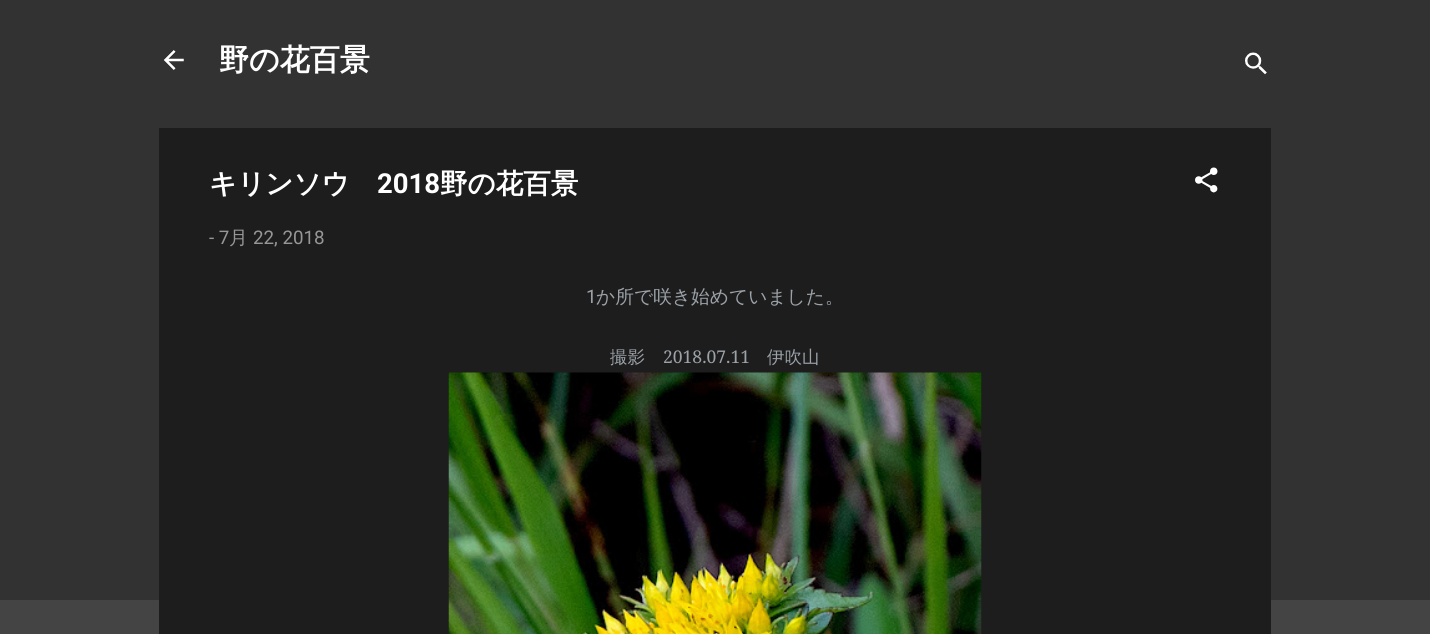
#include <cairo/cairo.h>
#include <math.h>
#include <stddef.h>

static cairo_t *cr;

static void rgb(unsigned color)
{
	cairo_set_source_rgb(cr, (color >> 16) / 255.0, (color >> 8 & 255) / 255.0, (color & 255) / 255.0);
}

static void image(const char *path, double x, double y, double w, double h)
{
	cairo_surface_t *image = cairo_image_surface_create_from_png(path);
	cairo_save(cr);
	cairo_set_source_surface(cr, image, x, y);
	cairo_rectangle(cr, x, y, w, h);
	cairo_fill(cr);
	cairo_restore(cr);
	cairo_surface_destroy(image);
}

int main(void) {
	cairo_surface_t *surface = cairo_image_surface_create(CAIRO_FORMAT_RGB24, 1430, 634);
	cr = cairo_create(surface);
	cairo_font_options_t *options = cairo_font_options_create();
	cairo_font_options_set_hint_metrics(options, CAIRO_HINT_METRICS_OFF);
	cairo_font_options_set_hint_style(options, CAIRO_HINT_STYLE_NONE);
	cairo_set_font_options(cr, options);
	cairo_set_miter_limit(cr, 4);
	rgb(0x444444);
	cairo_paint(cr);
	rgb(0x323232);
	cairo_rectangle(cr, 0, 0, 1430, 600);
	cairo_fill(cr);
	image("img/1.png", 164, 50, 20, 20);
	image("img/2.png", 1245, 52, 22, 23);
	rgb(0x1d1d1d);
	cairo_rectangle(cr, 159, 128, 1112, 506);
	cairo_fill(cr);
	image("img/3.png", 1195, 167, 23, 26);
	image("img/4.png", 448, 372, 534, 262);
	cairo_select_font_face(cr, "WenQuanYi Zen Hei", CAIRO_FONT_SLANT_NORMAL, CAIRO_FONT_WEIGHT_BOLD);
	cairo_set_font_size(cr, 30);
	rgb(0xffffff);
	cairo_move_to(cr, 219, 70);
	cairo_show_text(cr, "野の花百景");
	cairo_set_font_size(cr, 27.5);
	cairo_move_to(cr, 209, 193);
	cairo_show_text(cr, "キリンソウ");
	cairo_select_font_face(cr, "Roboto", CAIRO_FONT_SLANT_NORMAL, CAIRO_FONT_WEIGHT_BOLD);
	cairo_move_to(cr, 377, 193);
	cairo_show_text(cr, "2018");
	cairo_select_font_face(cr, "WenQuanYi Zen Hei", CAIRO_FONT_SLANT_NORMAL, CAIRO_FONT_WEIGHT_BOLD);
	cairo_move_to(cr, 440, 193);
	cairo_show_text(cr, "野の花百景");
	cairo_select_font_face(cr, "Roboto", CAIRO_FONT_SLANT_NORMAL, CAIRO_FONT_WEIGHT_NORMAL);
	cairo_set_font_size(cr, 18.75);
	rgb(0x979797);
	cairo_move_to(cr, 209, 244);
	cairo_show_text(cr, "- 7");
	cairo_select_font_face(cr, "WenQuanYi Zen Hei Medium", CAIRO_FONT_SLANT_NORMAL, CAIRO_FONT_WEIGHT_NORMAL);
	cairo_move_to(cr, 229, 244);
	cairo_show_text(cr, "月");
	cairo_select_font_face(cr, "Roboto", CAIRO_FONT_SLANT_NORMAL, CAIRO_FONT_WEIGHT_NORMAL);
	cairo_move_to(cr, 253, 244);
	cairo_show_text(cr, "22, 2018");
	rgb(0x9ba2a8);
	cairo_move_to(cr, 586, 303);
	cairo_show_text(cr, "1");
	cairo_select_font_face(cr, "WenQuanYi Zen Hei Medium", CAIRO_FONT_SLANT_NORMAL, CAIRO_FONT_WEIGHT_NORMAL);
	cairo_move_to(cr, 596, 303);
	cairo_show_text(cr, "か所で咲き始めていました。");
	cairo_set_font_size(cr, 17.5);
	cairo_move_to(cr, 610, 363);
	cairo_show_text(cr, "撮影");
	cairo_select_font_face(cr, "Noto Serif", CAIRO_FONT_SLANT_NORMAL, CAIRO_FONT_WEIGHT_NORMAL);
	cairo_move_to(cr, 663, 363);
	cairo_show_text(cr, "2018.07.11");
	cairo_select_font_face(cr, "WenQuanYi Zen Hei Medium", CAIRO_FONT_SLANT_NORMAL, CAIRO_FONT_WEIGHT_NORMAL);
	cairo_move_to(cr, 767, 363);
	cairo_show_text(cr, "伊吹山");
	cairo_surface_write_to_png(surface, "page.png");
	cairo_font_options_destroy(options);
	cairo_destroy(cr);
	cairo_surface_destroy(surface);
	return 0;
}
